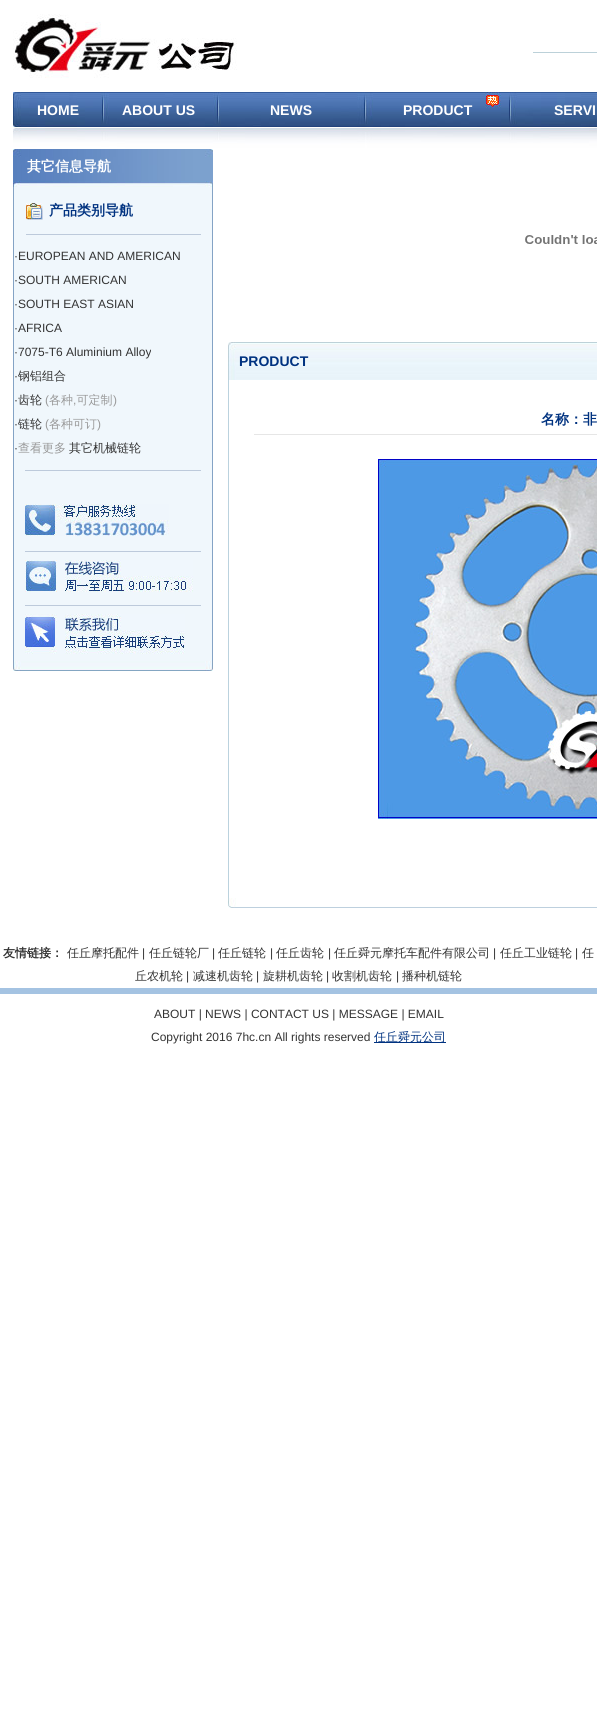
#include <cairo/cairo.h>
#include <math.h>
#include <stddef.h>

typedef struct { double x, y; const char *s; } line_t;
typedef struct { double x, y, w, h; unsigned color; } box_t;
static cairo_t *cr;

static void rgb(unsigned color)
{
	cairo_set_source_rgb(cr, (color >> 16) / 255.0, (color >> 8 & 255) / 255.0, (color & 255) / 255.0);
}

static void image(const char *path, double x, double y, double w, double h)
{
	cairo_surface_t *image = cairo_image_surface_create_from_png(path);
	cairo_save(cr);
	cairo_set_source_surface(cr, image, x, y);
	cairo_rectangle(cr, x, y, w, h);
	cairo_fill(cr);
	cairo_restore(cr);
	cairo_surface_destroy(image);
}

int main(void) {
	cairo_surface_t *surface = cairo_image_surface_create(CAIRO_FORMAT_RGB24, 597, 1716);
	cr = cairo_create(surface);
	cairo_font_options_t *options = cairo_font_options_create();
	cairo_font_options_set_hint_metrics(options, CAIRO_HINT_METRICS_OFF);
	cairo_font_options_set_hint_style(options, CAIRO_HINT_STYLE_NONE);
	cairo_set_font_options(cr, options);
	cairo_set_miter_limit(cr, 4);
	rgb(0xffffff);
	cairo_paint(cr);
	image("img/1.png", 13, 14, 224, 64);
	rgb(0xbcd1d9);
	cairo_rectangle(cr, 533, 52, 64, 1);
	cairo_fill(cr);
	image("img/2.png", 13, 92, 584, 57);
	image("img/3.png", 13, 149, 200, 38);
	{
		static const box_t items[] = {
			{14, 187, 198, 474, 0xf0f7fc},
			{212, 187, 1, 474, 0x84a3c5},
			{13, 187, 1, 474, 0x84a3c5},
		};
		for (size_t i = 0; i < sizeof items / sizeof *items; i++) {
			rgb(items[i].color);
			cairo_rectangle(cr, items[i].x, items[i].y, items[i].w, items[i].h);
			cairo_fill(cr);
		}
	}
	image("img/4.png", 26, 203, 17, 17);
	rgb(0xbdcadb);
	cairo_rectangle(cr, 26, 234, 175, 1);
	cairo_fill(cr);
	cairo_rectangle(cr, 25, 470, 176, 1);
	cairo_fill(cr);
	image("img/5.png", 25, 504, 144, 32);
	cairo_rectangle(cr, 25, 551, 176, 1);
	cairo_fill(cr);
	image("img/6.png", 25, 560, 168, 32);
	cairo_rectangle(cr, 25, 605, 176, 1);
	cairo_fill(cr);
	image("img/7.png", 25, 614, 160, 40);
	image("img/8.png", 13, 661, 200, 10);
	image("img/9.png", 525, 235, 72, 9);
	image("img/10.png", 228, 342, 369, 38);
	rgb(0xbbd2de);
	cairo_rectangle(cr, 228, 380, 1, 518);
	cairo_fill(cr);
	rgb(0xe6e6e6);
	cairo_rectangle(cr, 254, 434, 343, 1);
	cairo_fill(cr);
	image("img/11.png", 378, 459, 219, 360);
	image("img/12.png", 228, 898, 369, 10);
	rgb(0xa4c3e2);
	cairo_rectangle(cr, 0, 988, 597, 6);
	cairo_fill(cr);
	rgb(0x003280);
	cairo_rectangle(cr, 374, 1042, 72, 1);
	cairo_fill(cr);
	cairo_select_font_face(cr, "Liberation Sans", CAIRO_FONT_SLANT_NORMAL, CAIRO_FONT_WEIGHT_BOLD);
	cairo_set_font_size(cr, 14);
	rgb(0xffffff);
	{
		static const line_t items[] = {
			{37, 115, "HOME"},
			{122, 115, "ABOUT US"},
			{270, 115, "NEWS"},
			{403, 115, "PRODUCT"},
			{554, 115, "SERVI"},
		};
		for (size_t i = 0; i < sizeof items / sizeof *items; i++) {
			cairo_move_to(cr, items[i].x, items[i].y);
			cairo_show_text(cr, items[i].s);
		}
	}
	cairo_select_font_face(cr, "WenQuanYi Zen Hei", CAIRO_FONT_SLANT_NORMAL, CAIRO_FONT_WEIGHT_BOLD);
	cairo_move_to(cr, 27, 171);
	cairo_show_text(cr, "其它信息导航");
	rgb(0x003280);
	cairo_move_to(cr, 49, 215);
	cairo_show_text(cr, "产品类别导航");
	cairo_select_font_face(cr, "Liberation Sans", CAIRO_FONT_SLANT_NORMAL, CAIRO_FONT_WEIGHT_NORMAL);
	cairo_set_font_size(cr, 12);
	rgb(0x333333);
	{
		static const line_t items[] = {
			{14, 260, "·EUROPEAN AND AMERICAN"},
			{14, 284, "·SOUTH AMERICAN"},
			{14, 308, "·SOUTH EAST ASIAN"},
			{14, 332, "·AFRICA"},
			{14, 356, "·7075-T6 Aluminium Alloy"},
			{14, 380, "·"},
		};
		for (size_t i = 0; i < sizeof items / sizeof *items; i++) {
			cairo_move_to(cr, items[i].x, items[i].y);
			cairo_show_text(cr, items[i].s);
		}
	}
	cairo_select_font_face(cr, "WenQuanYi Zen Hei Medium", CAIRO_FONT_SLANT_NORMAL, CAIRO_FONT_WEIGHT_NORMAL);
	cairo_move_to(cr, 18, 380);
	cairo_show_text(cr, "钢铝组合");
	cairo_select_font_face(cr, "Liberation Sans", CAIRO_FONT_SLANT_NORMAL, CAIRO_FONT_WEIGHT_NORMAL);
	cairo_move_to(cr, 14, 404);
	cairo_show_text(cr, "·");
	cairo_select_font_face(cr, "WenQuanYi Zen Hei Medium", CAIRO_FONT_SLANT_NORMAL, CAIRO_FONT_WEIGHT_NORMAL);
	cairo_move_to(cr, 18, 404);
	cairo_show_text(cr, "齿轮");
	cairo_select_font_face(cr, "Liberation Sans", CAIRO_FONT_SLANT_NORMAL, CAIRO_FONT_WEIGHT_NORMAL);
	rgb(0x999999);
	cairo_move_to(cr, 45, 404);
	cairo_show_text(cr, "(");
	cairo_select_font_face(cr, "WenQuanYi Zen Hei Medium", CAIRO_FONT_SLANT_NORMAL, CAIRO_FONT_WEIGHT_NORMAL);
	cairo_move_to(cr, 49, 404);
	cairo_show_text(cr, "各种 可定制");
	cairo_select_font_face(cr, "Liberation Sans", CAIRO_FONT_SLANT_NORMAL, CAIRO_FONT_WEIGHT_NORMAL);
	cairo_move_to(cr, 113, 404);
	cairo_show_text(cr, ")");
	cairo_move_to(cr, 73, 404);
	cairo_show_text(cr, ",");
	rgb(0x333333);
	cairo_move_to(cr, 14, 428);
	cairo_show_text(cr, "·");
	cairo_select_font_face(cr, "WenQuanYi Zen Hei Medium", CAIRO_FONT_SLANT_NORMAL, CAIRO_FONT_WEIGHT_NORMAL);
	cairo_move_to(cr, 18, 428);
	cairo_show_text(cr, "链轮");
	cairo_select_font_face(cr, "Liberation Sans", CAIRO_FONT_SLANT_NORMAL, CAIRO_FONT_WEIGHT_NORMAL);
	rgb(0x999999);
	cairo_move_to(cr, 45, 428);
	cairo_show_text(cr, "(");
	cairo_select_font_face(cr, "WenQuanYi Zen Hei Medium", CAIRO_FONT_SLANT_NORMAL, CAIRO_FONT_WEIGHT_NORMAL);
	cairo_move_to(cr, 49, 428);
	cairo_show_text(cr, "各种可订");
	cairo_select_font_face(cr, "Liberation Sans", CAIRO_FONT_SLANT_NORMAL, CAIRO_FONT_WEIGHT_NORMAL);
	cairo_move_to(cr, 97, 428);
	cairo_show_text(cr, ")");
	rgb(0x333333);
	cairo_move_to(cr, 14, 452);
	cairo_show_text(cr, "·");
	cairo_select_font_face(cr, "WenQuanYi Zen Hei Medium", CAIRO_FONT_SLANT_NORMAL, CAIRO_FONT_WEIGHT_NORMAL);
	rgb(0x999999);
	cairo_move_to(cr, 18, 452);
	cairo_show_text(cr, "查看更多");
	rgb(0x333333);
	cairo_move_to(cr, 69, 452);
	cairo_show_text(cr, "其它机械链轮");
	cairo_select_font_face(cr, "Liberation Sans", CAIRO_FONT_SLANT_NORMAL, CAIRO_FONT_WEIGHT_BOLD);
	cairo_set_font_size(cr, 14);
	rgb(0x003280);
	cairo_move_to(cr, 239, 366);
	cairo_show_text(cr, "PRODUCT");
	cairo_select_font_face(cr, "WenQuanYi Zen Hei", CAIRO_FONT_SLANT_NORMAL, CAIRO_FONT_WEIGHT_BOLD);
	cairo_move_to(cr, 541, 424);
	cairo_show_text(cr, "名称：非");
	cairo_set_font_size(cr, 12);
	rgb(0x333333);
	cairo_move_to(cr, 3, 957);
	cairo_show_text(cr, "友情链接：");
	cairo_select_font_face(cr, "WenQuanYi Zen Hei Medium", CAIRO_FONT_SLANT_NORMAL, CAIRO_FONT_WEIGHT_NORMAL);
	cairo_move_to(cr, 67, 957);
	cairo_show_text(cr, "任丘摩托配件");
	cairo_select_font_face(cr, "Liberation Sans", CAIRO_FONT_SLANT_NORMAL, CAIRO_FONT_WEIGHT_NORMAL);
	cairo_move_to(cr, 142, 957);
	cairo_show_text(cr, "|");
	cairo_select_font_face(cr, "WenQuanYi Zen Hei Medium", CAIRO_FONT_SLANT_NORMAL, CAIRO_FONT_WEIGHT_NORMAL);
	cairo_move_to(cr, 149, 957);
	cairo_show_text(cr, "任丘链轮厂");
	cairo_select_font_face(cr, "Liberation Sans", CAIRO_FONT_SLANT_NORMAL, CAIRO_FONT_WEIGHT_NORMAL);
	cairo_move_to(cr, 212, 957);
	cairo_show_text(cr, "|");
	cairo_select_font_face(cr, "WenQuanYi Zen Hei Medium", CAIRO_FONT_SLANT_NORMAL, CAIRO_FONT_WEIGHT_NORMAL);
	cairo_move_to(cr, 218, 957);
	cairo_show_text(cr, "任丘链轮");
	cairo_select_font_face(cr, "Liberation Sans", CAIRO_FONT_SLANT_NORMAL, CAIRO_FONT_WEIGHT_NORMAL);
	cairo_move_to(cr, 270, 957);
	cairo_show_text(cr, "|");
	cairo_select_font_face(cr, "WenQuanYi Zen Hei Medium", CAIRO_FONT_SLANT_NORMAL, CAIRO_FONT_WEIGHT_NORMAL);
	cairo_move_to(cr, 276, 957);
	cairo_show_text(cr, "任丘齿轮");
	cairo_select_font_face(cr, "Liberation Sans", CAIRO_FONT_SLANT_NORMAL, CAIRO_FONT_WEIGHT_NORMAL);
	cairo_move_to(cr, 328, 957);
	cairo_show_text(cr, "|");
	cairo_select_font_face(cr, "WenQuanYi Zen Hei Medium", CAIRO_FONT_SLANT_NORMAL, CAIRO_FONT_WEIGHT_NORMAL);
	cairo_move_to(cr, 334, 957);
	cairo_show_text(cr, "任丘舜元摩托车配件有限公司");
	cairo_select_font_face(cr, "Liberation Sans", CAIRO_FONT_SLANT_NORMAL, CAIRO_FONT_WEIGHT_NORMAL);
	cairo_move_to(cr, 493, 957);
	cairo_show_text(cr, "|");
	cairo_select_font_face(cr, "WenQuanYi Zen Hei Medium", CAIRO_FONT_SLANT_NORMAL, CAIRO_FONT_WEIGHT_NORMAL);
	cairo_move_to(cr, 500, 957);
	cairo_show_text(cr, "任丘工业链轮");
	cairo_select_font_face(cr, "Liberation Sans", CAIRO_FONT_SLANT_NORMAL, CAIRO_FONT_WEIGHT_NORMAL);
	cairo_move_to(cr, 575, 957);
	cairo_show_text(cr, "|");
	cairo_select_font_face(cr, "WenQuanYi Zen Hei Medium", CAIRO_FONT_SLANT_NORMAL, CAIRO_FONT_WEIGHT_NORMAL);
	cairo_move_to(cr, 582, 957);
	cairo_show_text(cr, "任");
	cairo_move_to(cr, 135, 980);
	cairo_show_text(cr, "丘农机轮");
	cairo_select_font_face(cr, "Liberation Sans", CAIRO_FONT_SLANT_NORMAL, CAIRO_FONT_WEIGHT_NORMAL);
	cairo_move_to(cr, 186, 980);
	cairo_show_text(cr, "|");
	cairo_select_font_face(cr, "WenQuanYi Zen Hei Medium", CAIRO_FONT_SLANT_NORMAL, CAIRO_FONT_WEIGHT_NORMAL);
	cairo_move_to(cr, 193, 980);
	cairo_show_text(cr, "减速机齿轮");
	cairo_select_font_face(cr, "Liberation Sans", CAIRO_FONT_SLANT_NORMAL, CAIRO_FONT_WEIGHT_NORMAL);
	cairo_move_to(cr, 256, 980);
	cairo_show_text(cr, "|");
	cairo_select_font_face(cr, "WenQuanYi Zen Hei Medium", CAIRO_FONT_SLANT_NORMAL, CAIRO_FONT_WEIGHT_NORMAL);
	cairo_move_to(cr, 263, 980);
	cairo_show_text(cr, "旋耕机齿轮");
	cairo_select_font_face(cr, "Liberation Sans", CAIRO_FONT_SLANT_NORMAL, CAIRO_FONT_WEIGHT_NORMAL);
	cairo_move_to(cr, 326, 980);
	cairo_show_text(cr, "|");
	cairo_select_font_face(cr, "WenQuanYi Zen Hei Medium", CAIRO_FONT_SLANT_NORMAL, CAIRO_FONT_WEIGHT_NORMAL);
	cairo_move_to(cr, 332, 980);
	cairo_show_text(cr, "收割机齿轮");
	cairo_select_font_face(cr, "Liberation Sans", CAIRO_FONT_SLANT_NORMAL, CAIRO_FONT_WEIGHT_NORMAL);
	cairo_move_to(cr, 396, 980);
	cairo_show_text(cr, "|");
	cairo_select_font_face(cr, "WenQuanYi Zen Hei Medium", CAIRO_FONT_SLANT_NORMAL, CAIRO_FONT_WEIGHT_NORMAL);
	cairo_move_to(cr, 402, 980);
	cairo_show_text(cr, "播种机链轮");
	cairo_select_font_face(cr, "Liberation Sans", CAIRO_FONT_SLANT_NORMAL, CAIRO_FONT_WEIGHT_NORMAL);
	cairo_move_to(cr, 154, 1018);
	cairo_show_text(cr, "ABOUT | NEWS | CONTACT US | MESSAGE | EMAIL");
	cairo_move_to(cr, 151, 1041);
	cairo_show_text(cr, "Copyright 2016 7hc.cn All rights reserved");
	cairo_select_font_face(cr, "WenQuanYi Zen Hei Medium", CAIRO_FONT_SLANT_NORMAL, CAIRO_FONT_WEIGHT_NORMAL);
	rgb(0x003280);
	cairo_move_to(cr, 374, 1041);
	cairo_show_text(cr, "任丘舜元公司");
	cairo_surface_write_to_png(surface, "page.png");
	cairo_font_options_destroy(options);
	cairo_destroy(cr);
	cairo_surface_destroy(surface);
	return 0;
}
